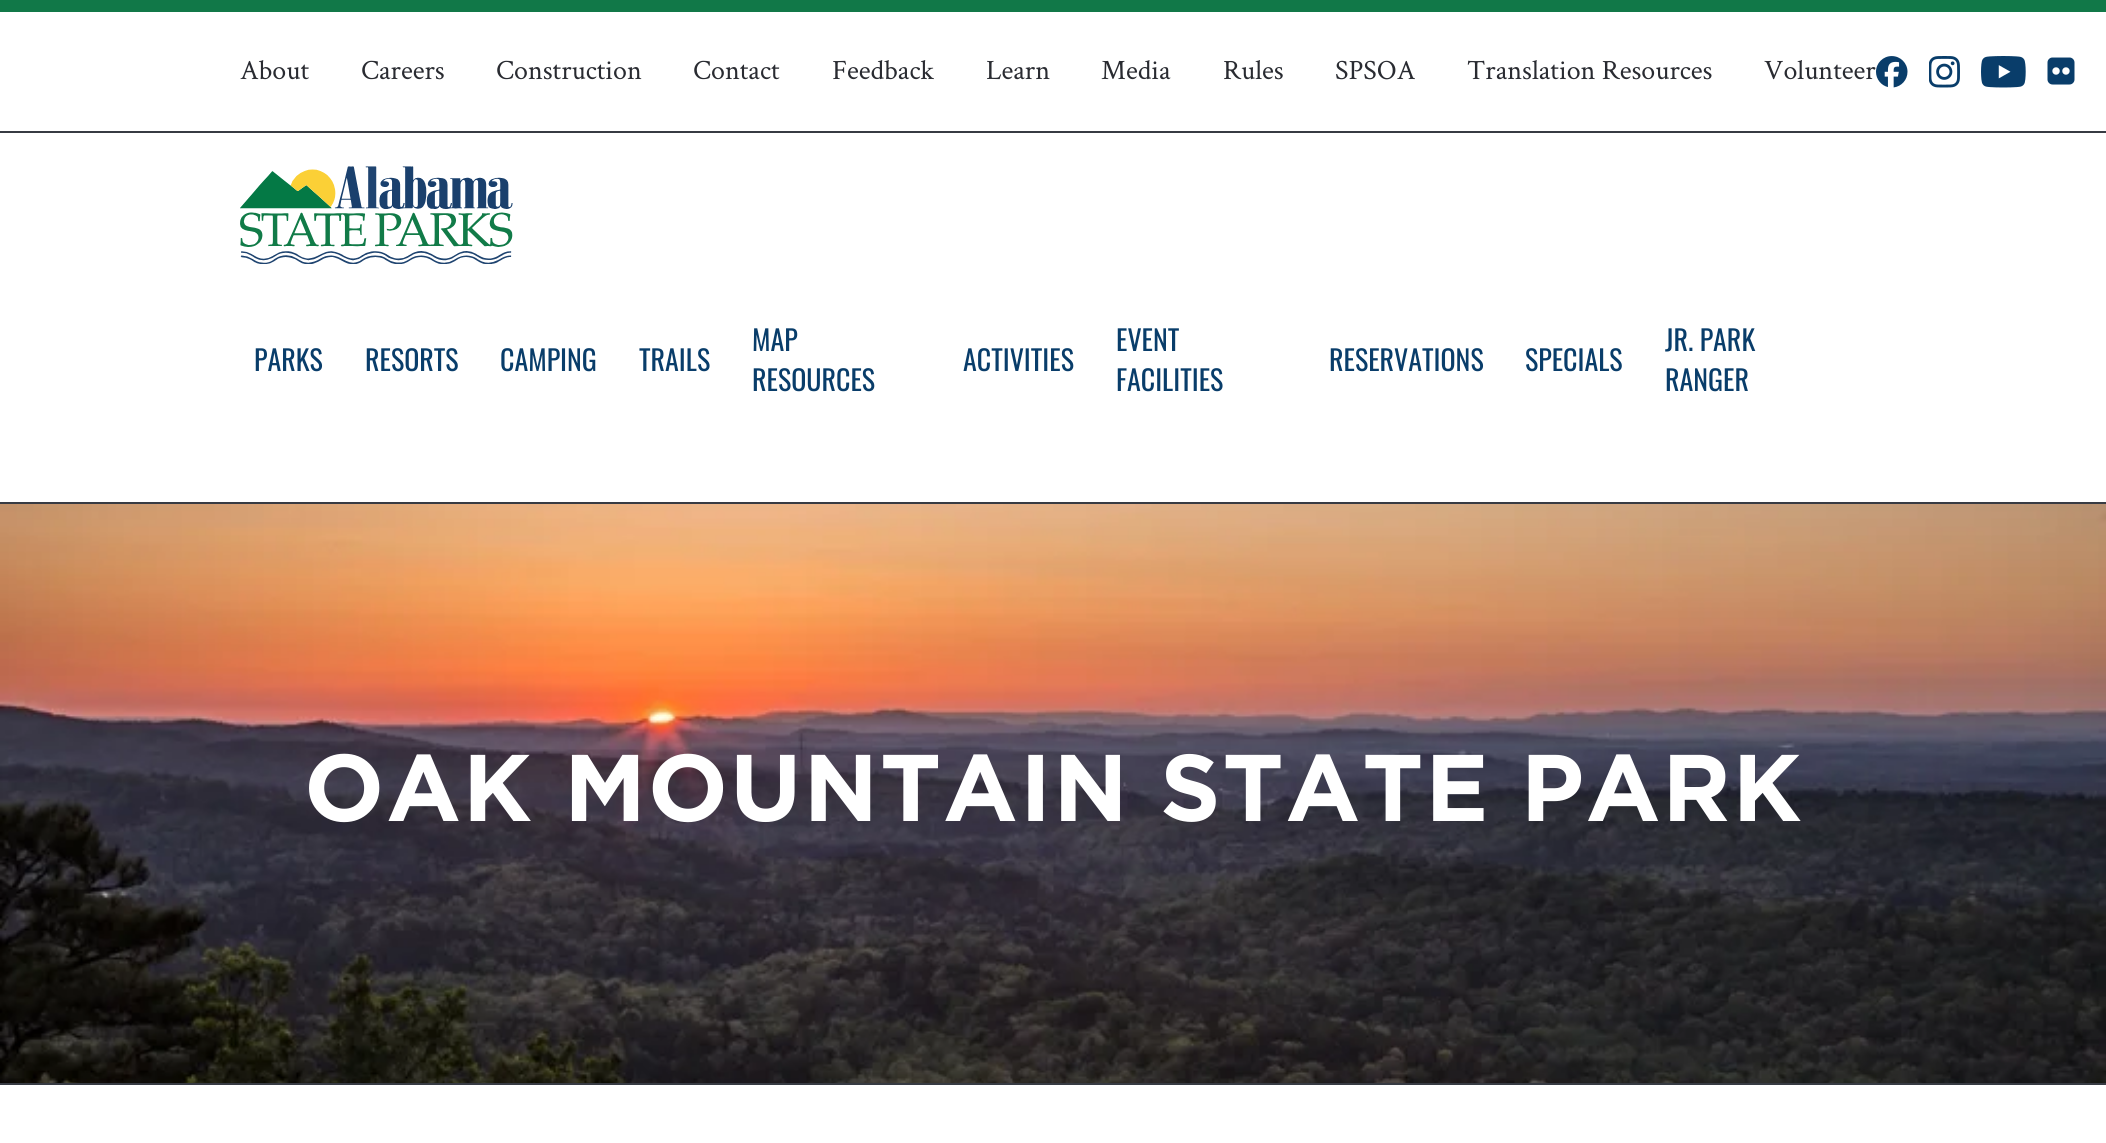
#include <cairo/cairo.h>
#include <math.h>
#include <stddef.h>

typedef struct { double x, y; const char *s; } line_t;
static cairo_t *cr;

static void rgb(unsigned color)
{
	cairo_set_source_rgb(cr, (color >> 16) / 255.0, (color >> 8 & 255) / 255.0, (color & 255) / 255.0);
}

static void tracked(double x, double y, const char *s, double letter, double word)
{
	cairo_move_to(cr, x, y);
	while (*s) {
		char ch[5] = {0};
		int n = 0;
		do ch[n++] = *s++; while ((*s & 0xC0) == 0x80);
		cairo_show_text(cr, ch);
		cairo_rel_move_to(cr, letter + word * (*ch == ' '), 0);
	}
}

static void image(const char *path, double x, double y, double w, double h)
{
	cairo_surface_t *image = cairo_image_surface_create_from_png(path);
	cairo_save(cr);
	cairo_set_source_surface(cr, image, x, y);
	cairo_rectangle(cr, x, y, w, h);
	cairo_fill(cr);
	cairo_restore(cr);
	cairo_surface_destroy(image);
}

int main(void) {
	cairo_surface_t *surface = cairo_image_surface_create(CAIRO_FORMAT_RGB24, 2106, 1143);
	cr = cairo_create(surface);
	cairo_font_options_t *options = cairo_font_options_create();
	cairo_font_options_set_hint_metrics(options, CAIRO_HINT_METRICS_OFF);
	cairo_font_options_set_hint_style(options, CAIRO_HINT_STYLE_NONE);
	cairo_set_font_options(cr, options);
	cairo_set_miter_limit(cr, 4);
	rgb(0xffffff);
	cairo_paint(cr);
	rgb(0x117848);
	cairo_rectangle(cr, 0, 0, 2106, 12);
	cairo_fill(cr);
	image("img/1.png", 1876, 56, 32, 32);
	image("img/2.png", 1929, 56, 31, 32);
	image("img/3.png", 1981, 56, 45, 32);
	image("img/4.png", 2047, 57, 28, 28);
	rgb(0x373b43);
	cairo_rectangle(cr, 0, 131, 2106, 2);
	cairo_fill(cr);
	cairo_rectangle(cr, 0, 502, 2106, 2);
	cairo_fill(cr);
	image("img/5.png", 240, 166, 273, 98);
	image("img/6.png", 0, 504, 2106, 579);
	cairo_rectangle(cr, 0, 1083, 2106, 2);
	cairo_fill(cr);
	cairo_select_font_face(cr, "Crimson Text", CAIRO_FONT_SLANT_NORMAL, CAIRO_FONT_WEIGHT_NORMAL);
	cairo_set_font_size(cr, 28);
	rgb(0x292b31);
	{
		static const line_t items[] = {
			{240, 79, "About"},
			{361, 79, "Careers"},
			{496, 79, "Construction"},
			{693, 79, "Contact"},
			{832, 79, "Feedback"},
			{986, 79, "Learn"},
			{1101, 79, "Media"},
			{1223, 79, "Rules"},
			{1335, 79, "SPSOA"},
			{1467, 79, "Translation Resources"},
			{1764, 79, "Volunteer"},
		};
		for (size_t i = 0; i < sizeof items / sizeof *items; i++) {
			cairo_move_to(cr, items[i].x, items[i].y);
			cairo_show_text(cr, items[i].s);
		}
	}
	cairo_select_font_face(cr, "Oswald", CAIRO_FONT_SLANT_NORMAL, CAIRO_FONT_WEIGHT_NORMAL);
	rgb(0x093d6a);
	{
		static const line_t items[] = {
			{254, 371, "PARKS"},
			{365, 371, "RESORTS"},
			{500, 371, "CAMPING"},
			{639, 371, "TRAILS"},
			{752, 351, "MAP"},
			{752, 391, "RESOURCES"},
			{963, 371, "ACTIVITIES"},
			{1116, 351, "EVENT"},
			{1116, 391, "FACILITIES"},
			{1329, 371, "RESERVATIONS"},
			{1525, 371, "SPECIALS"},
			{1665, 351, "JR. PARK"},
			{1665, 391, "RANGER"},
		};
		for (size_t i = 0; i < sizeof items / sizeof *items; i++) {
			cairo_move_to(cr, items[i].x, items[i].y);
			cairo_show_text(cr, items[i].s);
		}
	}
	cairo_select_font_face(cr, "Gotham", CAIRO_FONT_SLANT_NORMAL, CAIRO_FONT_WEIGHT_BOLD);
	cairo_set_font_size(cr, 94.5);
	rgb(0xffffff);
	tracked(304, 821, "OAK MOUNTAIN STATE PARK", 1.9, 0);
	cairo_surface_write_to_png(surface, "page.png");
	cairo_font_options_destroy(options);
	cairo_destroy(cr);
	cairo_surface_destroy(surface);
	return 0;
}
